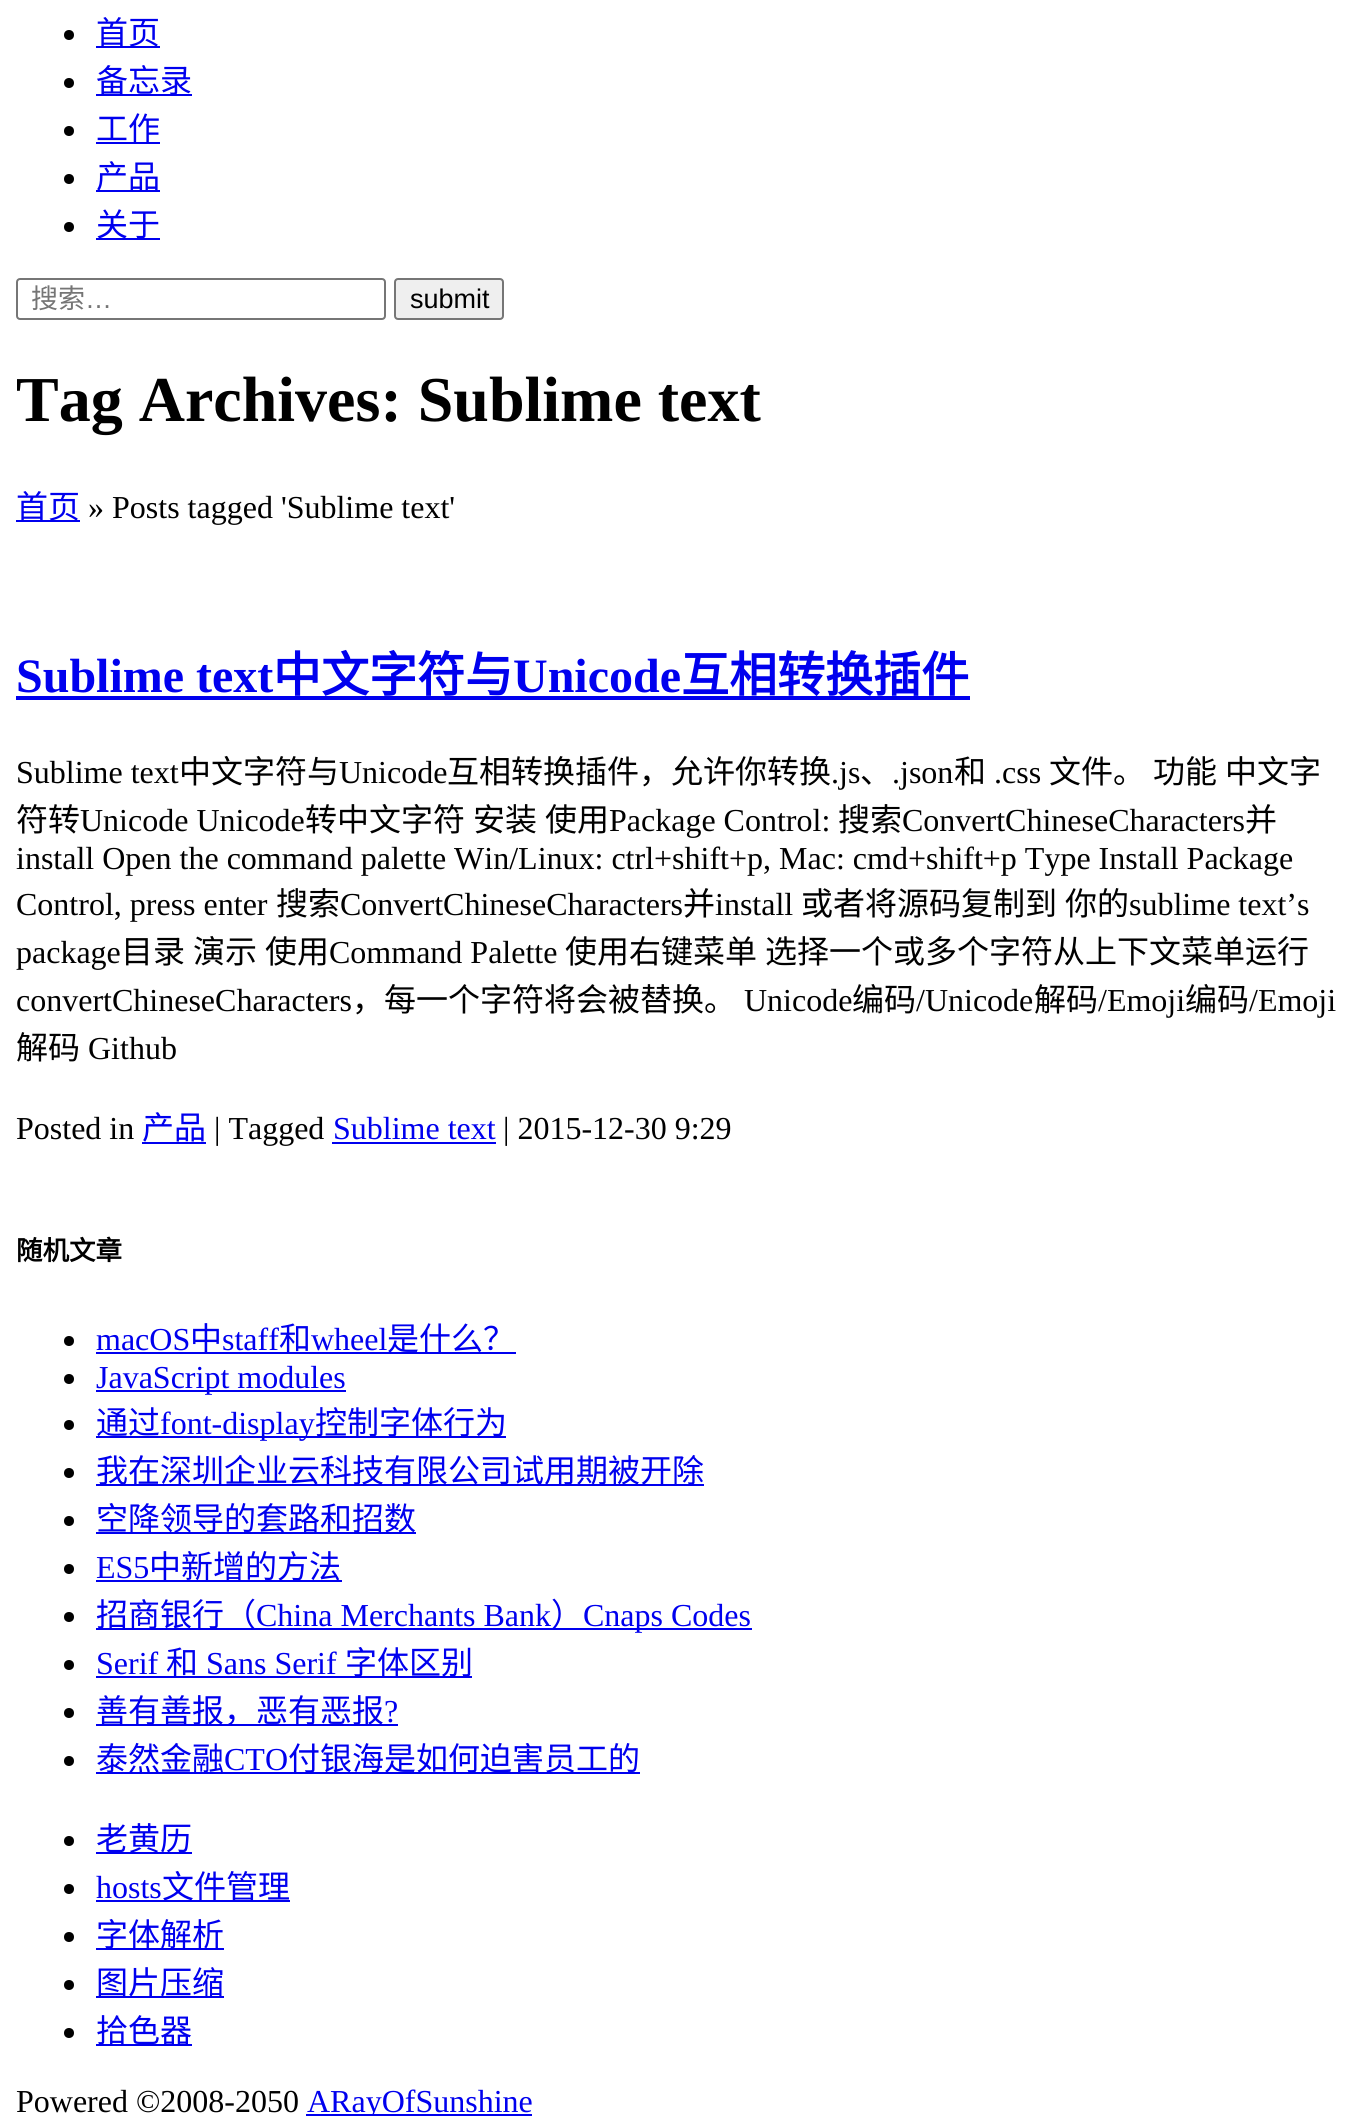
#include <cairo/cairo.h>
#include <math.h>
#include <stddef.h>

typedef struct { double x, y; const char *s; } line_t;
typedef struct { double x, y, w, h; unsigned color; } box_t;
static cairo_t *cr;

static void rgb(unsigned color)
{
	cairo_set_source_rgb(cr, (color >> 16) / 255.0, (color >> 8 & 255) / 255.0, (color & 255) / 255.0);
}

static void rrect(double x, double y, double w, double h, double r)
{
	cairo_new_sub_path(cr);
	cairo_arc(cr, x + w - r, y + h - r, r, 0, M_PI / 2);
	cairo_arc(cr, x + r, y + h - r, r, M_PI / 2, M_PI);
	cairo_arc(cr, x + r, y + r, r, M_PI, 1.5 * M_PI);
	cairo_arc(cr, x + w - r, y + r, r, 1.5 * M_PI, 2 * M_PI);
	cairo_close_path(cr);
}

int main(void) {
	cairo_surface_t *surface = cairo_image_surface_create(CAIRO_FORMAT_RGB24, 1352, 2116);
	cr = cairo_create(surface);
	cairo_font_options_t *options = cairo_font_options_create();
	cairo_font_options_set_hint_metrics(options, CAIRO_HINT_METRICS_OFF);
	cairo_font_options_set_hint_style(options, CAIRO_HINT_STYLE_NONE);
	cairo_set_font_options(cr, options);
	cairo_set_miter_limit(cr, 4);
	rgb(0xffffff);
	cairo_paint(cr);
	rgb(0x000000);
	cairo_arc(cr, 69, 35, 5, 0, 2 * M_PI);
	cairo_fill(cr);
	rgb(0x0000ee);
	cairo_rectangle(cr, 96, 46, 64, 2);
	cairo_fill(cr);
	rgb(0x000000);
	cairo_arc(cr, 69, 83, 5, 0, 2 * M_PI);
	cairo_fill(cr);
	rgb(0x0000ee);
	cairo_rectangle(cr, 96, 94, 96, 2);
	cairo_fill(cr);
	rgb(0x000000);
	cairo_arc(cr, 69, 131, 5, 0, 2 * M_PI);
	cairo_fill(cr);
	rgb(0x0000ee);
	cairo_rectangle(cr, 96, 142, 64, 2);
	cairo_fill(cr);
	rgb(0x000000);
	cairo_arc(cr, 69, 179, 5, 0, 2 * M_PI);
	cairo_fill(cr);
	rgb(0x0000ee);
	cairo_rectangle(cr, 96, 190, 64, 2);
	cairo_fill(cr);
	rgb(0x000000);
	cairo_arc(cr, 69, 227, 5, 0, 2 * M_PI);
	cairo_fill(cr);
	rgb(0x0000ee);
	cairo_rectangle(cr, 96, 238, 64, 2);
	cairo_fill(cr);
	rrect(17, 279, 368, 40, 3);
	rgb(0x767676);
	cairo_stroke(cr);
	rgb(0xefefef);
	rrect(395, 279, 108, 40, 3);
	cairo_fill_preserve(cr);
	rgb(0x767676);
	cairo_stroke(cr);
	{
		static const box_t items[] = {
			{16, 520, 64, 2, 0x0000ee},
			{16, 696, 954, 4, 0x0000ee},
			{142, 1142, 64, 2, 0x0000ee},
			{332, 1142, 164, 2, 0x0000ee},
		};
		for (size_t i = 0; i < sizeof items / sizeof *items; i++) {
			rgb(items[i].color);
			cairo_rectangle(cr, items[i].x, items[i].y, items[i].w, items[i].h);
			cairo_fill(cr);
		}
	}
	rgb(0x000000);
	cairo_arc(cr, 69, 1341, 5, 0, 2 * M_PI);
	cairo_fill(cr);
	rgb(0x0000ee);
	cairo_rectangle(cr, 96, 1352, 420, 2);
	cairo_fill(cr);
	rgb(0x000000);
	cairo_arc(cr, 69, 1379, 5, 0, 2 * M_PI);
	cairo_fill(cr);
	rgb(0x0000ee);
	cairo_rectangle(cr, 96, 1390, 250, 2);
	cairo_fill(cr);
	rgb(0x000000);
	cairo_arc(cr, 69, 1425, 5, 0, 2 * M_PI);
	cairo_fill(cr);
	rgb(0x0000ee);
	cairo_rectangle(cr, 96, 1436, 410, 2);
	cairo_fill(cr);
	rgb(0x000000);
	cairo_arc(cr, 69, 1473, 5, 0, 2 * M_PI);
	cairo_fill(cr);
	rgb(0x0000ee);
	cairo_rectangle(cr, 96, 1484, 608, 2);
	cairo_fill(cr);
	rgb(0x000000);
	cairo_arc(cr, 69, 1521, 5, 0, 2 * M_PI);
	cairo_fill(cr);
	rgb(0x0000ee);
	cairo_rectangle(cr, 96, 1532, 320, 2);
	cairo_fill(cr);
	rgb(0x000000);
	cairo_arc(cr, 69, 1569, 5, 0, 2 * M_PI);
	cairo_fill(cr);
	rgb(0x0000ee);
	cairo_rectangle(cr, 96, 1580, 246, 2);
	cairo_fill(cr);
	rgb(0x000000);
	cairo_arc(cr, 69, 1617, 5, 0, 2 * M_PI);
	cairo_fill(cr);
	rgb(0x0000ee);
	cairo_rectangle(cr, 96, 1628, 656, 2);
	cairo_fill(cr);
	rgb(0x000000);
	cairo_arc(cr, 69, 1665, 5, 0, 2 * M_PI);
	cairo_fill(cr);
	rgb(0x0000ee);
	cairo_rectangle(cr, 96, 1676, 376, 2);
	cairo_fill(cr);
	rgb(0x000000);
	cairo_arc(cr, 69, 1713, 5, 0, 2 * M_PI);
	cairo_fill(cr);
	rgb(0x0000ee);
	cairo_rectangle(cr, 96, 1724, 302, 2);
	cairo_fill(cr);
	rgb(0x000000);
	cairo_arc(cr, 69, 1761, 5, 0, 2 * M_PI);
	cairo_fill(cr);
	rgb(0x0000ee);
	cairo_rectangle(cr, 96, 1772, 544, 2);
	cairo_fill(cr);
	rgb(0x000000);
	cairo_arc(cr, 69, 1841, 5, 0, 2 * M_PI);
	cairo_fill(cr);
	rgb(0x0000ee);
	cairo_rectangle(cr, 96, 1852, 96, 2);
	cairo_fill(cr);
	rgb(0x000000);
	cairo_arc(cr, 69, 1889, 5, 0, 2 * M_PI);
	cairo_fill(cr);
	rgb(0x0000ee);
	cairo_rectangle(cr, 96, 1900, 194, 2);
	cairo_fill(cr);
	rgb(0x000000);
	cairo_arc(cr, 69, 1937, 5, 0, 2 * M_PI);
	cairo_fill(cr);
	rgb(0x0000ee);
	cairo_rectangle(cr, 96, 1948, 128, 2);
	cairo_fill(cr);
	rgb(0x000000);
	cairo_arc(cr, 69, 1985, 5, 0, 2 * M_PI);
	cairo_fill(cr);
	rgb(0x0000ee);
	cairo_rectangle(cr, 96, 1996, 128, 2);
	cairo_fill(cr);
	rgb(0x000000);
	cairo_arc(cr, 69, 2033, 5, 0, 2 * M_PI);
	cairo_fill(cr);
	rgb(0x0000ee);
	cairo_rectangle(cr, 96, 2044, 96, 2);
	cairo_fill(cr);
	cairo_rectangle(cr, 306, 2114, 226, 2);
	cairo_fill(cr);
	cairo_select_font_face(cr, "Noto Sans CJK SC", CAIRO_FONT_SLANT_NORMAL, CAIRO_FONT_WEIGHT_NORMAL);
	cairo_set_font_size(cr, 32);
	{
		static const line_t items[] = {
			{96, 44, "首页"},
			{96, 92, "备忘录"},
			{96, 140, "工作"},
			{96, 188, "产品"},
			{96, 236, "关于"},
		};
		for (size_t i = 0; i < sizeof items / sizeof *items; i++) {
			cairo_move_to(cr, items[i].x, items[i].y);
			cairo_show_text(cr, items[i].s);
		}
	}
	cairo_set_font_size(cr, 27);
	rgb(0x757575);
	cairo_move_to(cr, 31, 308);
	cairo_show_text(cr, "搜索");
	cairo_select_font_face(cr, "Liberation Sans", CAIRO_FONT_SLANT_NORMAL, CAIRO_FONT_WEIGHT_NORMAL);
	cairo_move_to(cr, 85, 308);
	cairo_show_text(cr, "…");
	rgb(0x000000);
	cairo_move_to(cr, 410, 308);
	cairo_show_text(cr, "submit");
	cairo_select_font_face(cr, "Liberation Serif", CAIRO_FONT_SLANT_NORMAL, CAIRO_FONT_WEIGHT_BOLD);
	cairo_set_font_size(cr, 64);
	cairo_move_to(cr, 16, 421);
	cairo_show_text(cr, "Tag Archives: Sublime text");
	cairo_select_font_face(cr, "Noto Sans CJK SC", CAIRO_FONT_SLANT_NORMAL, CAIRO_FONT_WEIGHT_NORMAL);
	cairo_set_font_size(cr, 32);
	rgb(0x0000ee);
	cairo_move_to(cr, 16, 518);
	cairo_show_text(cr, "首页");
	cairo_select_font_face(cr, "Liberation Serif", CAIRO_FONT_SLANT_NORMAL, CAIRO_FONT_WEIGHT_NORMAL);
	rgb(0x000000);
	cairo_move_to(cr, 88, 518);
	cairo_show_text(cr, "» Posts tagged 'Sublime text'");
	cairo_select_font_face(cr, "Liberation Serif", CAIRO_FONT_SLANT_NORMAL, CAIRO_FONT_WEIGHT_BOLD);
	cairo_set_font_size(cr, 48);
	rgb(0x0000ee);
	cairo_move_to(cr, 16, 692);
	cairo_show_text(cr, "Sublime text");
	cairo_select_font_face(cr, "Noto Sans CJK SC", CAIRO_FONT_SLANT_NORMAL, CAIRO_FONT_WEIGHT_BOLD);
	cairo_move_to(cr, 273, 692);
	cairo_show_text(cr, "中文字符与");
	cairo_select_font_face(cr, "Liberation Serif", CAIRO_FONT_SLANT_NORMAL, CAIRO_FONT_WEIGHT_BOLD);
	cairo_move_to(cr, 513, 692);
	cairo_show_text(cr, "Unicode");
	cairo_select_font_face(cr, "Noto Sans CJK SC", CAIRO_FONT_SLANT_NORMAL, CAIRO_FONT_WEIGHT_BOLD);
	cairo_move_to(cr, 681, 692);
	cairo_show_text(cr, "互相转换插件");
	cairo_select_font_face(cr, "Liberation Serif", CAIRO_FONT_SLANT_NORMAL, CAIRO_FONT_WEIGHT_NORMAL);
	cairo_set_font_size(cr, 32);
	rgb(0x000000);
	cairo_move_to(cr, 16, 783);
	cairo_show_text(cr, "Sublime text");
	cairo_select_font_face(cr, "Noto Sans CJK SC", CAIRO_FONT_SLANT_NORMAL, CAIRO_FONT_WEIGHT_NORMAL);
	cairo_move_to(cr, 179, 783);
	cairo_show_text(cr, "中文字符与");
	cairo_select_font_face(cr, "Liberation Serif", CAIRO_FONT_SLANT_NORMAL, CAIRO_FONT_WEIGHT_NORMAL);
	cairo_move_to(cr, 339, 783);
	cairo_show_text(cr, "Unicode");
	cairo_select_font_face(cr, "Noto Sans CJK SC", CAIRO_FONT_SLANT_NORMAL, CAIRO_FONT_WEIGHT_NORMAL);
	cairo_move_to(cr, 447, 783);
	cairo_show_text(cr, "互相转换插件，允许你转换");
	cairo_select_font_face(cr, "Liberation Serif", CAIRO_FONT_SLANT_NORMAL, CAIRO_FONT_WEIGHT_NORMAL);
	cairo_move_to(cr, 831, 783);
	cairo_show_text(cr, ".js");
	cairo_select_font_face(cr, "Noto Sans CJK SC", CAIRO_FONT_SLANT_NORMAL, CAIRO_FONT_WEIGHT_NORMAL);
	cairo_move_to(cr, 860, 783);
	cairo_show_text(cr, "、");
	cairo_select_font_face(cr, "Liberation Serif", CAIRO_FONT_SLANT_NORMAL, CAIRO_FONT_WEIGHT_NORMAL);
	cairo_move_to(cr, 892, 783);
	cairo_show_text(cr, ".json");
	cairo_select_font_face(cr, "Noto Sans CJK SC", CAIRO_FONT_SLANT_NORMAL, CAIRO_FONT_WEIGHT_NORMAL);
	cairo_move_to(cr, 954, 783);
	cairo_show_text(cr, "和");
	cairo_select_font_face(cr, "Liberation Serif", CAIRO_FONT_SLANT_NORMAL, CAIRO_FONT_WEIGHT_NORMAL);
	cairo_move_to(cr, 994, 783);
	cairo_show_text(cr, ".css");
	cairo_select_font_face(cr, "Noto Sans CJK SC", CAIRO_FONT_SLANT_NORMAL, CAIRO_FONT_WEIGHT_NORMAL);
	{
		static const line_t items[] = {
			{1049, 783, "文件。"},
			{1153, 783, "功能"},
			{1225, 783, "中文字"},
			{16, 831, "符转"},
		};
		for (size_t i = 0; i < sizeof items / sizeof *items; i++) {
			cairo_move_to(cr, items[i].x, items[i].y);
			cairo_show_text(cr, items[i].s);
		}
	}
	cairo_select_font_face(cr, "Liberation Serif", CAIRO_FONT_SLANT_NORMAL, CAIRO_FONT_WEIGHT_NORMAL);
	cairo_move_to(cr, 80, 831);
	cairo_show_text(cr, "Unicode Unicode");
	cairo_select_font_face(cr, "Noto Sans CJK SC", CAIRO_FONT_SLANT_NORMAL, CAIRO_FONT_WEIGHT_NORMAL);
	{
		static const line_t items[] = {
			{305, 831, "转中文字符"},
			{473, 831, "安装"},
			{545, 831, "使用"},
		};
		for (size_t i = 0; i < sizeof items / sizeof *items; i++) {
			cairo_move_to(cr, items[i].x, items[i].y);
			cairo_show_text(cr, items[i].s);
		}
	}
	cairo_select_font_face(cr, "Liberation Serif", CAIRO_FONT_SLANT_NORMAL, CAIRO_FONT_WEIGHT_NORMAL);
	cairo_move_to(cr, 609, 831);
	cairo_show_text(cr, "Package Control:");
	cairo_select_font_face(cr, "Noto Sans CJK SC", CAIRO_FONT_SLANT_NORMAL, CAIRO_FONT_WEIGHT_NORMAL);
	cairo_move_to(cr, 838, 831);
	cairo_show_text(cr, "搜索");
	cairo_select_font_face(cr, "Liberation Serif", CAIRO_FONT_SLANT_NORMAL, CAIRO_FONT_WEIGHT_NORMAL);
	cairo_move_to(cr, 902, 831);
	cairo_show_text(cr, "ConvertChineseCharacters");
	cairo_select_font_face(cr, "Noto Sans CJK SC", CAIRO_FONT_SLANT_NORMAL, CAIRO_FONT_WEIGHT_NORMAL);
	cairo_move_to(cr, 1245, 831);
	cairo_show_text(cr, "并");
	cairo_select_font_face(cr, "Liberation Serif", CAIRO_FONT_SLANT_NORMAL, CAIRO_FONT_WEIGHT_NORMAL);
	cairo_move_to(cr, 16, 869);
	cairo_show_text(cr, "install Open the command palette Win/Linux: ctrl+shift+p, Mac: cmd+shift+p Type Install Package");
	cairo_move_to(cr, 16, 915);
	cairo_show_text(cr, "Control, press enter");
	cairo_select_font_face(cr, "Noto Sans CJK SC", CAIRO_FONT_SLANT_NORMAL, CAIRO_FONT_WEIGHT_NORMAL);
	cairo_move_to(cr, 276, 915);
	cairo_show_text(cr, "搜索");
	cairo_select_font_face(cr, "Liberation Serif", CAIRO_FONT_SLANT_NORMAL, CAIRO_FONT_WEIGHT_NORMAL);
	cairo_move_to(cr, 340, 915);
	cairo_show_text(cr, "ConvertChineseCharacters");
	cairo_select_font_face(cr, "Noto Sans CJK SC", CAIRO_FONT_SLANT_NORMAL, CAIRO_FONT_WEIGHT_NORMAL);
	cairo_move_to(cr, 683, 915);
	cairo_show_text(cr, "并");
	cairo_select_font_face(cr, "Liberation Serif", CAIRO_FONT_SLANT_NORMAL, CAIRO_FONT_WEIGHT_NORMAL);
	cairo_move_to(cr, 715, 915);
	cairo_show_text(cr, "install");
	cairo_select_font_face(cr, "Noto Sans CJK SC", CAIRO_FONT_SLANT_NORMAL, CAIRO_FONT_WEIGHT_NORMAL);
	cairo_move_to(cr, 801, 915);
	cairo_show_text(cr, "或者将源码复制到");
	cairo_move_to(cr, 1065, 915);
	cairo_show_text(cr, "你的");
	cairo_select_font_face(cr, "Liberation Serif", CAIRO_FONT_SLANT_NORMAL, CAIRO_FONT_WEIGHT_NORMAL);
	cairo_move_to(cr, 1129, 915);
	cairo_show_text(cr, "sublime text’s");
	cairo_move_to(cr, 16, 963);
	cairo_show_text(cr, "package");
	cairo_select_font_face(cr, "Noto Sans CJK SC", CAIRO_FONT_SLANT_NORMAL, CAIRO_FONT_WEIGHT_NORMAL);
	{
		static const line_t items[] = {
			{121, 963, "目录"},
			{193, 963, "演示"},
			{265, 963, "使用"},
		};
		for (size_t i = 0; i < sizeof items / sizeof *items; i++) {
			cairo_move_to(cr, items[i].x, items[i].y);
			cairo_show_text(cr, items[i].s);
		}
	}
	cairo_select_font_face(cr, "Liberation Serif", CAIRO_FONT_SLANT_NORMAL, CAIRO_FONT_WEIGHT_NORMAL);
	cairo_move_to(cr, 329, 963);
	cairo_show_text(cr, "Command Palette");
	cairo_select_font_face(cr, "Noto Sans CJK SC", CAIRO_FONT_SLANT_NORMAL, CAIRO_FONT_WEIGHT_NORMAL);
	cairo_move_to(cr, 565, 963);
	cairo_show_text(cr, "使用右键菜单");
	cairo_move_to(cr, 765, 963);
	cairo_show_text(cr, "选择一个或多个字符从上下文菜单运行");
	cairo_select_font_face(cr, "Liberation Serif", CAIRO_FONT_SLANT_NORMAL, CAIRO_FONT_WEIGHT_NORMAL);
	cairo_move_to(cr, 16, 1011);
	cairo_show_text(cr, "convertChineseCharacters");
	cairo_select_font_face(cr, "Noto Sans CJK SC", CAIRO_FONT_SLANT_NORMAL, CAIRO_FONT_WEIGHT_NORMAL);
	cairo_move_to(cr, 352, 1011);
	cairo_show_text(cr, "，每一个字符将会被替换。");
	cairo_select_font_face(cr, "Liberation Serif", CAIRO_FONT_SLANT_NORMAL, CAIRO_FONT_WEIGHT_NORMAL);
	cairo_move_to(cr, 744, 1011);
	cairo_show_text(cr, "Unicode");
	cairo_select_font_face(cr, "Noto Sans CJK SC", CAIRO_FONT_SLANT_NORMAL, CAIRO_FONT_WEIGHT_NORMAL);
	cairo_move_to(cr, 852, 1011);
	cairo_show_text(cr, "编码");
	cairo_select_font_face(cr, "Liberation Serif", CAIRO_FONT_SLANT_NORMAL, CAIRO_FONT_WEIGHT_NORMAL);
	cairo_move_to(cr, 916, 1011);
	cairo_show_text(cr, "/Unicode");
	cairo_select_font_face(cr, "Noto Sans CJK SC", CAIRO_FONT_SLANT_NORMAL, CAIRO_FONT_WEIGHT_NORMAL);
	cairo_move_to(cr, 1034, 1011);
	cairo_show_text(cr, "解码");
	cairo_select_font_face(cr, "Liberation Serif", CAIRO_FONT_SLANT_NORMAL, CAIRO_FONT_WEIGHT_NORMAL);
	cairo_move_to(cr, 1098, 1011);
	cairo_show_text(cr, "/Emoji");
	cairo_select_font_face(cr, "Noto Sans CJK SC", CAIRO_FONT_SLANT_NORMAL, CAIRO_FONT_WEIGHT_NORMAL);
	cairo_move_to(cr, 1185, 1011);
	cairo_show_text(cr, "编码");
	cairo_select_font_face(cr, "Liberation Serif", CAIRO_FONT_SLANT_NORMAL, CAIRO_FONT_WEIGHT_NORMAL);
	cairo_move_to(cr, 1249, 1011);
	cairo_show_text(cr, "/Emoji");
	cairo_select_font_face(cr, "Noto Sans CJK SC", CAIRO_FONT_SLANT_NORMAL, CAIRO_FONT_WEIGHT_NORMAL);
	cairo_move_to(cr, 16, 1059);
	cairo_show_text(cr, "解码");
	cairo_select_font_face(cr, "Liberation Serif", CAIRO_FONT_SLANT_NORMAL, CAIRO_FONT_WEIGHT_NORMAL);
	cairo_move_to(cr, 88, 1059);
	cairo_show_text(cr, "Github");
	cairo_move_to(cr, 16, 1139);
	cairo_show_text(cr, "Posted in");
	cairo_select_font_face(cr, "Noto Sans CJK SC", CAIRO_FONT_SLANT_NORMAL, CAIRO_FONT_WEIGHT_NORMAL);
	rgb(0x0000ee);
	cairo_move_to(cr, 142, 1139);
	cairo_show_text(cr, "产品");
	cairo_select_font_face(cr, "Liberation Serif", CAIRO_FONT_SLANT_NORMAL, CAIRO_FONT_WEIGHT_NORMAL);
	rgb(0x000000);
	cairo_move_to(cr, 214, 1139);
	cairo_show_text(cr, "| Tagged");
	rgb(0x0000ee);
	cairo_move_to(cr, 333, 1139);
	cairo_show_text(cr, "Sublime text");
	rgb(0x000000);
	cairo_move_to(cr, 503, 1139);
	cairo_show_text(cr, "| 2015-12-30 9:29");
	cairo_select_font_face(cr, "Noto Sans CJK SC", CAIRO_FONT_SLANT_NORMAL, CAIRO_FONT_WEIGHT_BOLD);
	cairo_set_font_size(cr, 26.5);
	cairo_move_to(cr, 16, 1260);
	cairo_show_text(cr, "随机文章");
	cairo_select_font_face(cr, "Liberation Serif", CAIRO_FONT_SLANT_NORMAL, CAIRO_FONT_WEIGHT_NORMAL);
	cairo_set_font_size(cr, 32);
	rgb(0x0000ee);
	cairo_move_to(cr, 96, 1350);
	cairo_show_text(cr, "macOS");
	cairo_select_font_face(cr, "Noto Sans CJK SC", CAIRO_FONT_SLANT_NORMAL, CAIRO_FONT_WEIGHT_NORMAL);
	cairo_move_to(cr, 190, 1350);
	cairo_show_text(cr, "中");
	cairo_select_font_face(cr, "Liberation Serif", CAIRO_FONT_SLANT_NORMAL, CAIRO_FONT_WEIGHT_NORMAL);
	cairo_move_to(cr, 222, 1350);
	cairo_show_text(cr, "staff");
	cairo_select_font_face(cr, "Noto Sans CJK SC", CAIRO_FONT_SLANT_NORMAL, CAIRO_FONT_WEIGHT_NORMAL);
	cairo_move_to(cr, 279, 1350);
	cairo_show_text(cr, "和");
	cairo_select_font_face(cr, "Liberation Serif", CAIRO_FONT_SLANT_NORMAL, CAIRO_FONT_WEIGHT_NORMAL);
	cairo_move_to(cr, 311, 1350);
	cairo_show_text(cr, "wheel");
	cairo_select_font_face(cr, "Noto Sans CJK SC", CAIRO_FONT_SLANT_NORMAL, CAIRO_FONT_WEIGHT_NORMAL);
	cairo_move_to(cr, 387, 1350);
	cairo_show_text(cr, "是什么？");
	cairo_select_font_face(cr, "Liberation Serif", CAIRO_FONT_SLANT_NORMAL, CAIRO_FONT_WEIGHT_NORMAL);
	cairo_move_to(cr, 96, 1388);
	cairo_show_text(cr, "JavaScript modules");
	cairo_select_font_face(cr, "Noto Sans CJK SC", CAIRO_FONT_SLANT_NORMAL, CAIRO_FONT_WEIGHT_NORMAL);
	cairo_move_to(cr, 96, 1434);
	cairo_show_text(cr, "通过");
	cairo_select_font_face(cr, "Liberation Serif", CAIRO_FONT_SLANT_NORMAL, CAIRO_FONT_WEIGHT_NORMAL);
	cairo_move_to(cr, 160, 1434);
	cairo_show_text(cr, "font-display");
	cairo_select_font_face(cr, "Noto Sans CJK SC", CAIRO_FONT_SLANT_NORMAL, CAIRO_FONT_WEIGHT_NORMAL);
	{
		static const line_t items[] = {
			{315, 1434, "控制字体行为"},
			{96, 1482, "我在深圳企业云科技有限公司试用期被开除"},
			{96, 1530, "空降领导的套路和招数"},
		};
		for (size_t i = 0; i < sizeof items / sizeof *items; i++) {
			cairo_move_to(cr, items[i].x, items[i].y);
			cairo_show_text(cr, items[i].s);
		}
	}
	cairo_select_font_face(cr, "Liberation Serif", CAIRO_FONT_SLANT_NORMAL, CAIRO_FONT_WEIGHT_NORMAL);
	cairo_move_to(cr, 96, 1578);
	cairo_show_text(cr, "ES5");
	cairo_select_font_face(cr, "Noto Sans CJK SC", CAIRO_FONT_SLANT_NORMAL, CAIRO_FONT_WEIGHT_NORMAL);
	cairo_move_to(cr, 149, 1578);
	cairo_show_text(cr, "中新增的方法");
	cairo_move_to(cr, 96, 1626);
	cairo_show_text(cr, "招商银行（");
	cairo_select_font_face(cr, "Liberation Serif", CAIRO_FONT_SLANT_NORMAL, CAIRO_FONT_WEIGHT_NORMAL);
	cairo_move_to(cr, 256, 1626);
	cairo_show_text(cr, "China Merchants Bank");
	cairo_select_font_face(cr, "Noto Sans CJK SC", CAIRO_FONT_SLANT_NORMAL, CAIRO_FONT_WEIGHT_NORMAL);
	cairo_move_to(cr, 551, 1626);
	cairo_show_text(cr, "）");
	cairo_select_font_face(cr, "Liberation Serif", CAIRO_FONT_SLANT_NORMAL, CAIRO_FONT_WEIGHT_NORMAL);
	cairo_move_to(cr, 583, 1626);
	cairo_show_text(cr, "Cnaps Codes");
	cairo_move_to(cr, 96, 1674);
	cairo_show_text(cr, "Serif");
	cairo_select_font_face(cr, "Noto Sans CJK SC", CAIRO_FONT_SLANT_NORMAL, CAIRO_FONT_WEIGHT_NORMAL);
	cairo_move_to(cr, 166, 1674);
	cairo_show_text(cr, "和");
	cairo_select_font_face(cr, "Liberation Serif", CAIRO_FONT_SLANT_NORMAL, CAIRO_FONT_WEIGHT_NORMAL);
	cairo_move_to(cr, 206, 1674);
	cairo_show_text(cr, "Sans Serif");
	cairo_select_font_face(cr, "Noto Sans CJK SC", CAIRO_FONT_SLANT_NORMAL, CAIRO_FONT_WEIGHT_NORMAL);
	cairo_move_to(cr, 345, 1674);
	cairo_show_text(cr, "字体区别");
	cairo_move_to(cr, 96, 1722);
	cairo_show_text(cr, "善有善报，恶有恶报");
	cairo_select_font_face(cr, "Liberation Serif", CAIRO_FONT_SLANT_NORMAL, CAIRO_FONT_WEIGHT_NORMAL);
	cairo_move_to(cr, 384, 1722);
	cairo_show_text(cr, "?");
	cairo_select_font_face(cr, "Noto Sans CJK SC", CAIRO_FONT_SLANT_NORMAL, CAIRO_FONT_WEIGHT_NORMAL);
	cairo_move_to(cr, 96, 1770);
	cairo_show_text(cr, "泰然金融");
	cairo_select_font_face(cr, "Liberation Serif", CAIRO_FONT_SLANT_NORMAL, CAIRO_FONT_WEIGHT_NORMAL);
	cairo_move_to(cr, 224, 1770);
	cairo_show_text(cr, "CTO");
	cairo_select_font_face(cr, "Noto Sans CJK SC", CAIRO_FONT_SLANT_NORMAL, CAIRO_FONT_WEIGHT_NORMAL);
	cairo_move_to(cr, 288, 1770);
	cairo_show_text(cr, "付银海是如何迫害员工的");
	cairo_move_to(cr, 96, 1850);
	cairo_show_text(cr, "老黄历");
	cairo_select_font_face(cr, "Liberation Serif", CAIRO_FONT_SLANT_NORMAL, CAIRO_FONT_WEIGHT_NORMAL);
	cairo_move_to(cr, 96, 1898);
	cairo_show_text(cr, "hosts");
	cairo_select_font_face(cr, "Noto Sans CJK SC", CAIRO_FONT_SLANT_NORMAL, CAIRO_FONT_WEIGHT_NORMAL);
	{
		static const line_t items[] = {
			{162, 1898, "文件管理"},
			{96, 1946, "字体解析"},
			{96, 1994, "图片压缩"},
			{96, 2042, "拾色器"},
		};
		for (size_t i = 0; i < sizeof items / sizeof *items; i++) {
			cairo_move_to(cr, items[i].x, items[i].y);
			cairo_show_text(cr, items[i].s);
		}
	}
	cairo_select_font_face(cr, "Liberation Serif", CAIRO_FONT_SLANT_NORMAL, CAIRO_FONT_WEIGHT_NORMAL);
	rgb(0x000000);
	cairo_move_to(cr, 16, 2112);
	cairo_show_text(cr, "Powered ©2008-2050");
	rgb(0x0000ee);
	cairo_move_to(cr, 307, 2112);
	cairo_show_text(cr, "ARayOfSunshine");
	cairo_surface_write_to_png(surface, "page.png");
	cairo_font_options_destroy(options);
	cairo_destroy(cr);
	cairo_surface_destroy(surface);
	return 0;
}
